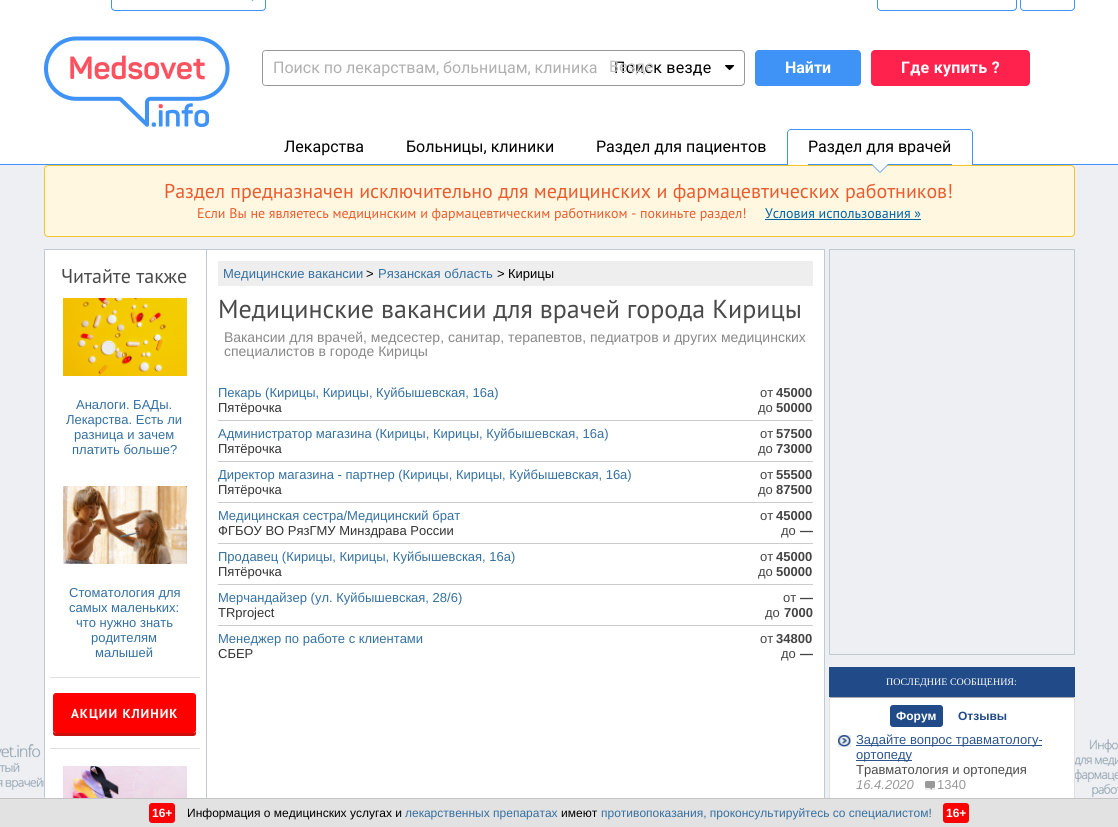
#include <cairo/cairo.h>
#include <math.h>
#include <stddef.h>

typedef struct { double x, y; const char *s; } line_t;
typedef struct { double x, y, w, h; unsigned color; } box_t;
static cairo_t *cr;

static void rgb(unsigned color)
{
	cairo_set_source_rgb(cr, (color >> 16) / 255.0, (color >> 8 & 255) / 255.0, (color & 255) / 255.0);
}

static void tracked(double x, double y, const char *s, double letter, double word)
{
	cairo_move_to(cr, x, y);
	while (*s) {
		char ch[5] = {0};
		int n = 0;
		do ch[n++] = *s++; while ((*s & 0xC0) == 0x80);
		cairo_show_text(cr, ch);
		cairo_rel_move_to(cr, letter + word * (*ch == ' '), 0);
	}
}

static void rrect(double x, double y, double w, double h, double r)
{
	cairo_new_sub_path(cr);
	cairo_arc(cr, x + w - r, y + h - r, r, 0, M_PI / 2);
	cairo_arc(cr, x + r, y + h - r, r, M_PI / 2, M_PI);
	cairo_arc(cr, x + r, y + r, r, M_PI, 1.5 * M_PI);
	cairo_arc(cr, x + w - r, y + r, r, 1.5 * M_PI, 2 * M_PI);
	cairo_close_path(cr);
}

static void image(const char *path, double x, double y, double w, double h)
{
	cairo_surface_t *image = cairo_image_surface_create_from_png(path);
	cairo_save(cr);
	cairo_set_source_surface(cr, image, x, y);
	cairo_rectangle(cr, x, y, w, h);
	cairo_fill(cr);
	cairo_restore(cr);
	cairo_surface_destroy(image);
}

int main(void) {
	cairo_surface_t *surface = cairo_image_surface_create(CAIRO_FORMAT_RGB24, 1118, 827);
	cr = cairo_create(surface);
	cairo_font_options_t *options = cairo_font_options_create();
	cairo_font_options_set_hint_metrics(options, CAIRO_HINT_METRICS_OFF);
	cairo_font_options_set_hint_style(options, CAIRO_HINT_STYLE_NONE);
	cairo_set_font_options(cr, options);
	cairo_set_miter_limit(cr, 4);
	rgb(0xedeff2);
	cairo_paint(cr);
	rgb(0xffffff);
	cairo_rectangle(cr, 0, 0, 1118, 129);
	cairo_fill(cr);
	rrect(111.5, -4.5, 154, 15, 3.5);
	rgb(0x3f93f6);
	cairo_set_line_width(cr, 1);
	cairo_stroke(cr);
	image("img/1.png", 251, 0, 3, 1);
	rrect(877.5, -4.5, 139, 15, 3.5);
	cairo_stroke(cr);
	rrect(1020.5, -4.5, 54, 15, 3.5);
	cairo_stroke(cr);
	image("img/2.png", 44, 36, 186, 91);
	rrect(262.5, 50.5, 482, 35, 3.5);
	rgb(0x989796);
	cairo_stroke(cr);
	rgb(0xffffff);
	cairo_new_path(cr);
	cairo_move_to(cr, 266, 51);
	cairo_line_to(cr, 603, 51);
	cairo_line_to(cr, 603, 85);
	cairo_line_to(cr, 266, 85);
	cairo_curve_to(cr, 264.5, 85, 263, 83.5, 263, 82);
	cairo_line_to(cr, 263, 54);
	cairo_curve_to(cr, 263, 52.5, 264.5, 51, 266, 51);
	cairo_close_path(cr);
	cairo_fill(cr);
	image("img/3.png", 725, 65, 10, 6);
	rgb(0x3f93f6);
	rrect(755, 50, 106, 36, 4);
	cairo_fill(cr);
	rgb(0xff224c);
	rrect(871, 50, 159, 36, 4);
	cairo_fill(cr);
	rgb(0xffffff);
	cairo_rectangle(cr, 0, 129, 1118, 35);
	cairo_fill(cr);
	rgb(0x3f93f6);
	cairo_rectangle(cr, 0, 164, 1118, 1);
	cairo_fill(cr);
	rgb(0xffffff);
	cairo_new_path(cr);
	cairo_move_to(cr, 791, 129);
	cairo_line_to(cr, 969, 129);
	cairo_curve_to(cr, 971, 129, 973, 131, 973, 133);
	cairo_line_to(cr, 973, 165);
	cairo_line_to(cr, 787, 165);
	cairo_line_to(cr, 787, 133);
	cairo_curve_to(cr, 787, 131, 789, 129, 791, 129);
	cairo_close_path(cr);
	cairo_fill(cr);
	rgb(0x3f93f6);
	cairo_set_fill_rule(cr, CAIRO_FILL_RULE_EVEN_ODD);
	cairo_new_path(cr);
	cairo_move_to(cr, 791, 129);
	cairo_line_to(cr, 969, 129);
	cairo_curve_to(cr, 971, 129, 973, 131, 973, 133);
	cairo_line_to(cr, 973, 165);
	cairo_line_to(cr, 787, 165);
	cairo_line_to(cr, 787, 133);
	cairo_curve_to(cr, 787, 131, 789, 129, 791, 129);
	cairo_close_path(cr);
	cairo_move_to(cr, 791, 130);
	cairo_line_to(cr, 969, 130);
	cairo_curve_to(cr, 971, 130, 972, 131, 972, 133);
	cairo_line_to(cr, 972, 165);
	cairo_line_to(cr, 788, 165);
	cairo_line_to(cr, 788, 133);
	cairo_curve_to(cr, 788, 131, 789, 130, 791, 130);
	cairo_close_path(cr);
	cairo_fill(cr);
	rgb(0xfff7e0);
	rrect(44.5, 165.5, 1030, 71, 3.5);
	cairo_fill_preserve(cr);
	rgb(0xf4c430);
	cairo_stroke(cr);
	rgb(0x3f93f6);
	cairo_set_fill_rule(cr, CAIRO_FILL_RULE_WINDING);
	cairo_new_path(cr);
	cairo_move_to(cr, 872, 165);
	cairo_line_to(cr, 888, 165);
	cairo_line_to(cr, 880, 173);
	cairo_close_path(cr);
	cairo_fill(cr);
	cairo_rectangle(cr, 808, 164, 144, 1);
	cairo_fill(cr);
	rgb(0xffffff);
	cairo_new_path(cr);
	cairo_move_to(cr, 872, 164);
	cairo_line_to(cr, 888, 164);
	cairo_line_to(cr, 880, 172);
	cairo_close_path(cr);
	cairo_fill(cr);
	rgb(0x0064a7);
	cairo_rectangle(cr, 765, 219, 156, 1);
	cairo_fill(cr);
	image("img/9.png", 0, 739, 1118, 58);
	rgb(0xffffff);
	cairo_rectangle(cr, 45, 250, 779, 548);
	cairo_fill(cr);
	cairo_rectangle(cr, 44.5, 249.5, 780, 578);
	rgb(0xc0cad5);
	cairo_stroke(cr);
	cairo_rectangle(cr, 206, 250, 1, 548);
	cairo_fill(cr);
	image("img/4.png", 63, 298, 124, 78);
	image("img/5.png", 63, 486, 124, 78);
	rgb(0xdfdfdf);
	cairo_rectangle(cr, 50, 677, 150, 1);
	cairo_fill(cr);
	cairo_rectangle(cr, 50, 748, 150, 1);
	cairo_fill(cr);
	rgb(0xcb0e0e);
	cairo_new_path(cr);
	cairo_move_to(cr, 53, 730);
	cairo_line_to(cr, 53, 733);
	cairo_curve_to(cr, 53, 735, 54, 736, 56, 736);
	cairo_line_to(cr, 193, 736);
	cairo_curve_to(cr, 195, 736, 196, 735, 196, 733);
	cairo_line_to(cr, 196, 730);
	cairo_curve_to(cr, 196, 732, 195, 733, 193, 733);
	cairo_line_to(cr, 56, 733);
	cairo_curve_to(cr, 54, 733, 53, 732, 53, 730);
	cairo_close_path(cr);
	cairo_fill(cr);
	rgb(0xff0000);
	rrect(53, 693, 143, 40, 3);
	cairo_fill(cr);
	image("img/6.png", 63, 766, 124, 32);
	{
		static const box_t items[] = {
			{218, 261, 595, 25, 0xeeeeee},
			{218, 420, 595, 1, 0xcccccc},
			{218, 461, 595, 1, 0xcccccc},
			{218, 502, 595, 1, 0xcccccc},
			{218, 543, 595, 1, 0xcccccc},
			{218, 584, 595, 1, 0xcccccc},
			{218, 625, 595, 1, 0xcccccc},
		};
		for (size_t i = 0; i < sizeof items / sizeof *items; i++) {
			rgb(items[i].color);
			cairo_rectangle(cr, items[i].x, items[i].y, items[i].w, items[i].h);
			cairo_fill(cr);
		}
	}
	cairo_rectangle(cr, 829.5, 249.5, 245, 405);
	rgb(0xc0cad5);
	cairo_stroke(cr);
	{
		static const box_t items[] = {
			{829, 667, 246, 30, 0x204a88},
			{830, 698, 244, 100, 0xffffff},
			{829, 697, 246, 1, 0xaaaaaa},
			{1074, 697, 1, 101, 0xe0e0e0},
			{829, 697, 1, 101, 0xe0e0e0},
		};
		for (size_t i = 0; i < sizeof items / sizeof *items; i++) {
			rgb(items[i].color);
			cairo_rectangle(cr, items[i].x, items[i].y, items[i].w, items[i].h);
			cairo_fill(cr);
		}
	}
	rgb(0x204a88);
	rrect(890, 705, 53, 22, 3);
	cairo_fill(cr);
	image("img/7.png", 838, 735, 13, 12);
	rgb(0x2c548e);
	cairo_rectangle(cr, 856, 745, 186, 1);
	cairo_fill(cr);
	cairo_rectangle(cr, 856, 760, 56, 1);
	cairo_fill(cr);
	image("img/8.png", 925, 781, 10, 9);
	rgb(0xe3e2e2);
	cairo_rectangle(cr, 0, 799, 1118, 28);
	cairo_fill(cr);
	rgb(0xc3c3c4);
	cairo_rectangle(cr, 0, 798, 1118, 1);
	cairo_fill(cr);
	rgb(0xff0000);
	rrect(149, 803, 26, 20, 3);
	cairo_fill(cr);
	rrect(943, 803, 26, 20, 3);
	cairo_fill(cr);
	cairo_select_font_face(cr, "Roboto", CAIRO_FONT_SLANT_NORMAL, CAIRO_FONT_WEIGHT_NORMAL);
	cairo_set_font_size(cr, 16);
	rgb(0xb0b0b0);
	cairo_move_to(cr, 273, 73);
	cairo_show_text(cr, "Поиск по лекарствам, больницам, клиника");
	rgb(0x000000);
	tracked(614, 73, "Поиск везде", 0.25, 0);
	rgb(0xc2c2c2);
	cairo_move_to(cr, 609, 72);
	cairo_show_text(cr, "Везде");
	cairo_select_font_face(cr, "Roboto", CAIRO_FONT_SLANT_NORMAL, CAIRO_FONT_WEIGHT_BOLD);
	rgb(0xffffff);
	cairo_move_to(cr, 785, 73);
	cairo_show_text(cr, "Найти");
	tracked(901, 73, "Где купить ?", 0.25, 0);
	cairo_select_font_face(cr, "Roboto", CAIRO_FONT_SLANT_NORMAL, CAIRO_FONT_WEIGHT_NORMAL);
	rgb(0x000000);
	{
		static const line_t items[] = {
			{284, 152, "Лекарства"},
			{406, 152, "Больницы, клиники"},
			{596, 152, "Раздел для пациентов"},
			{808, 152, "Раздел для врачей"},
		};
		for (size_t i = 0; i < sizeof items / sizeof *items; i++) {
			cairo_move_to(cr, items[i].x, items[i].y);
			cairo_show_text(cr, items[i].s);
		}
	}
	cairo_select_font_face(cr, "PT Sans", CAIRO_FONT_SLANT_NORMAL, CAIRO_FONT_WEIGHT_NORMAL);
	cairo_set_font_size(cr, 20);
	rgb(0xe95c2f);
	cairo_move_to(cr, 164, 198);
	cairo_show_text(cr, "Раздел предназначен исключительно для медицинских и фармацевтических работников!");
	cairo_set_font_size(cr, 14);
	cairo_move_to(cr, 197, 218);
	cairo_show_text(cr, "Если Вы не являетесь медицинским и фармацевтическим работником - покиньте раздел!");
	rgb(0x0064a7);
	cairo_move_to(cr, 765, 218);
	cairo_show_text(cr, "Условия использования »");
	cairo_set_font_size(cr, 20);
	rgb(0x4a4a4a);
	cairo_move_to(cr, 61, 283);
	cairo_show_text(cr, "Читайте также");
	cairo_select_font_face(cr, "Liberation Sans", CAIRO_FONT_SLANT_NORMAL, CAIRO_FONT_WEIGHT_NORMAL);
	cairo_set_font_size(cr, 13);
	rgb(0x3470a1);
	{
		static const line_t items[] = {
			{76, 409, "Аналоги. БАДы."},
			{66, 424, "Лекарства. Есть ли"},
			{74, 439, "разница и зачем"},
			{72, 454, "платить больше?"},
			{69, 597, "Стоматология для"},
			{69, 612, "самых маленьких:"},
			{76, 627, "что нужно знать"},
			{91, 642, "родителям"},
			{95, 657, "малышей"},
		};
		for (size_t i = 0; i < sizeof items / sizeof *items; i++) {
			cairo_move_to(cr, items[i].x, items[i].y);
			cairo_show_text(cr, items[i].s);
		}
	}
	cairo_select_font_face(cr, "PT Sans", CAIRO_FONT_SLANT_NORMAL, CAIRO_FONT_WEIGHT_BOLD);
	rgb(0xffffff);
	tracked(71, 718, "АКЦИИ КЛИНИК", 1, 0);
	cairo_select_font_face(cr, "Liberation Sans", CAIRO_FONT_SLANT_NORMAL, CAIRO_FONT_WEIGHT_NORMAL);
	rgb(0x3470a1);
	cairo_move_to(cr, 223, 278);
	cairo_show_text(cr, "Медицинские вакансии");
	rgb(0x000000);
	cairo_move_to(cr, 366, 278);
	cairo_show_text(cr, ">");
	rgb(0x3470a1);
	cairo_move_to(cr, 378, 278);
	cairo_show_text(cr, "Рязанская область");
	rgb(0x000000);
	cairo_move_to(cr, 497, 278);
	cairo_show_text(cr, ">");
	cairo_move_to(cr, 508, 278);
	cairo_show_text(cr, "Кирицы");
	cairo_select_font_face(cr, "PT Sans", CAIRO_FONT_SLANT_NORMAL, CAIRO_FONT_WEIGHT_NORMAL);
	cairo_set_font_size(cr, 26);
	rgb(0x4a4a4a);
	cairo_move_to(cr, 218, 318);
	cairo_show_text(cr, "Медицинские вакансии для врачей города Кирицы");
	cairo_select_font_face(cr, "Liberation Sans", CAIRO_FONT_SLANT_NORMAL, CAIRO_FONT_WEIGHT_NORMAL);
	cairo_set_font_size(cr, 14);
	rgb(0x888888);
	cairo_move_to(cr, 224, 342);
	cairo_show_text(cr, "Вакансии для врачей, медсестер, санитар, терапевтов, педиатров и других медицинских");
	cairo_move_to(cr, 224, 356);
	cairo_show_text(cr, "специалистов в городе Кирицы");
	cairo_set_font_size(cr, 13);
	rgb(0x3470a1);
	cairo_move_to(cr, 218, 397);
	cairo_show_text(cr, "Пекарь (Кирицы, Кирицы, Куйбышевская, 16а)");
	rgb(0x333333);
	cairo_move_to(cr, 218, 412);
	cairo_show_text(cr, "Пятёрочка");
	rgb(0x444444);
	cairo_move_to(cr, 760, 397);
	cairo_show_text(cr, "от");
	cairo_select_font_face(cr, "Liberation Sans", CAIRO_FONT_SLANT_NORMAL, CAIRO_FONT_WEIGHT_BOLD);
	cairo_move_to(cr, 776, 397);
	cairo_show_text(cr, "45000");
	cairo_select_font_face(cr, "Liberation Sans", CAIRO_FONT_SLANT_NORMAL, CAIRO_FONT_WEIGHT_NORMAL);
	cairo_move_to(cr, 758, 412);
	cairo_show_text(cr, "до");
	cairo_select_font_face(cr, "Liberation Sans", CAIRO_FONT_SLANT_NORMAL, CAIRO_FONT_WEIGHT_BOLD);
	cairo_move_to(cr, 776, 412);
	cairo_show_text(cr, "50000");
	cairo_select_font_face(cr, "Liberation Sans", CAIRO_FONT_SLANT_NORMAL, CAIRO_FONT_WEIGHT_NORMAL);
	rgb(0x3470a1);
	cairo_move_to(cr, 218, 438);
	cairo_show_text(cr, "Администратор магазина (Кирицы, Кирицы, Куйбышевская, 16а)");
	rgb(0x333333);
	cairo_move_to(cr, 218, 453);
	cairo_show_text(cr, "Пятёрочка");
	rgb(0x444444);
	cairo_move_to(cr, 760, 438);
	cairo_show_text(cr, "от");
	cairo_select_font_face(cr, "Liberation Sans", CAIRO_FONT_SLANT_NORMAL, CAIRO_FONT_WEIGHT_BOLD);
	cairo_move_to(cr, 776, 438);
	cairo_show_text(cr, "57500");
	cairo_select_font_face(cr, "Liberation Sans", CAIRO_FONT_SLANT_NORMAL, CAIRO_FONT_WEIGHT_NORMAL);
	cairo_move_to(cr, 758, 453);
	cairo_show_text(cr, "до");
	cairo_select_font_face(cr, "Liberation Sans", CAIRO_FONT_SLANT_NORMAL, CAIRO_FONT_WEIGHT_BOLD);
	cairo_move_to(cr, 776, 453);
	cairo_show_text(cr, "73000");
	cairo_select_font_face(cr, "Liberation Sans", CAIRO_FONT_SLANT_NORMAL, CAIRO_FONT_WEIGHT_NORMAL);
	rgb(0x3470a1);
	cairo_move_to(cr, 218, 479);
	cairo_show_text(cr, "Директор магазина - партнер (Кирицы, Кирицы, Куйбышевская, 16а)");
	rgb(0x333333);
	cairo_move_to(cr, 218, 494);
	cairo_show_text(cr, "Пятёрочка");
	rgb(0x444444);
	cairo_move_to(cr, 760, 479);
	cairo_show_text(cr, "от");
	cairo_select_font_face(cr, "Liberation Sans", CAIRO_FONT_SLANT_NORMAL, CAIRO_FONT_WEIGHT_BOLD);
	cairo_move_to(cr, 776, 479);
	cairo_show_text(cr, "55500");
	cairo_select_font_face(cr, "Liberation Sans", CAIRO_FONT_SLANT_NORMAL, CAIRO_FONT_WEIGHT_NORMAL);
	cairo_move_to(cr, 758, 494);
	cairo_show_text(cr, "до");
	cairo_select_font_face(cr, "Liberation Sans", CAIRO_FONT_SLANT_NORMAL, CAIRO_FONT_WEIGHT_BOLD);
	cairo_move_to(cr, 776, 494);
	cairo_show_text(cr, "87500");
	cairo_select_font_face(cr, "Liberation Sans", CAIRO_FONT_SLANT_NORMAL, CAIRO_FONT_WEIGHT_NORMAL);
	rgb(0x3470a1);
	cairo_move_to(cr, 218, 520);
	cairo_show_text(cr, "Медицинская сестра/Медицинский брат");
	rgb(0x333333);
	cairo_move_to(cr, 218, 535);
	cairo_show_text(cr, "ФГБОУ ВО РязГМУ Минздрава России");
	rgb(0x444444);
	cairo_move_to(cr, 760, 520);
	cairo_show_text(cr, "от");
	cairo_select_font_face(cr, "Liberation Sans", CAIRO_FONT_SLANT_NORMAL, CAIRO_FONT_WEIGHT_BOLD);
	cairo_move_to(cr, 776, 520);
	cairo_show_text(cr, "45000");
	cairo_select_font_face(cr, "Liberation Sans", CAIRO_FONT_SLANT_NORMAL, CAIRO_FONT_WEIGHT_NORMAL);
	cairo_move_to(cr, 781, 535);
	cairo_show_text(cr, "до");
	cairo_select_font_face(cr, "Liberation Sans", CAIRO_FONT_SLANT_NORMAL, CAIRO_FONT_WEIGHT_BOLD);
	cairo_move_to(cr, 800, 535);
	cairo_show_text(cr, "—");
	cairo_select_font_face(cr, "Liberation Sans", CAIRO_FONT_SLANT_NORMAL, CAIRO_FONT_WEIGHT_NORMAL);
	rgb(0x3470a1);
	cairo_move_to(cr, 218, 561);
	cairo_show_text(cr, "Продавец (Кирицы, Кирицы, Куйбышевская, 16а)");
	rgb(0x333333);
	cairo_move_to(cr, 218, 576);
	cairo_show_text(cr, "Пятёрочка");
	rgb(0x444444);
	cairo_move_to(cr, 760, 561);
	cairo_show_text(cr, "от");
	cairo_select_font_face(cr, "Liberation Sans", CAIRO_FONT_SLANT_NORMAL, CAIRO_FONT_WEIGHT_BOLD);
	cairo_move_to(cr, 776, 561);
	cairo_show_text(cr, "45000");
	cairo_select_font_face(cr, "Liberation Sans", CAIRO_FONT_SLANT_NORMAL, CAIRO_FONT_WEIGHT_NORMAL);
	cairo_move_to(cr, 758, 576);
	cairo_show_text(cr, "до");
	cairo_select_font_face(cr, "Liberation Sans", CAIRO_FONT_SLANT_NORMAL, CAIRO_FONT_WEIGHT_BOLD);
	cairo_move_to(cr, 776, 576);
	cairo_show_text(cr, "50000");
	cairo_select_font_face(cr, "Liberation Sans", CAIRO_FONT_SLANT_NORMAL, CAIRO_FONT_WEIGHT_NORMAL);
	rgb(0x3470a1);
	cairo_move_to(cr, 218, 602);
	cairo_show_text(cr, "Мерчандайзер (ул. Куйбышевская, 28/6)");
	rgb(0x333333);
	cairo_move_to(cr, 218, 617);
	cairo_show_text(cr, "TRproject");
	rgb(0x444444);
	cairo_move_to(cr, 783, 602);
	cairo_show_text(cr, "от");
	cairo_select_font_face(cr, "Liberation Sans", CAIRO_FONT_SLANT_NORMAL, CAIRO_FONT_WEIGHT_BOLD);
	cairo_move_to(cr, 800, 602);
	cairo_show_text(cr, "—");
	cairo_select_font_face(cr, "Liberation Sans", CAIRO_FONT_SLANT_NORMAL, CAIRO_FONT_WEIGHT_NORMAL);
	cairo_move_to(cr, 765, 617);
	cairo_show_text(cr, "до");
	cairo_select_font_face(cr, "Liberation Sans", CAIRO_FONT_SLANT_NORMAL, CAIRO_FONT_WEIGHT_BOLD);
	cairo_move_to(cr, 784, 617);
	cairo_show_text(cr, "7000");
	cairo_select_font_face(cr, "Liberation Sans", CAIRO_FONT_SLANT_NORMAL, CAIRO_FONT_WEIGHT_NORMAL);
	rgb(0x3470a1);
	cairo_move_to(cr, 218, 643);
	cairo_show_text(cr, "Менеджер по работе с клиентами");
	rgb(0x333333);
	cairo_move_to(cr, 218, 658);
	cairo_show_text(cr, "СБЕР");
	rgb(0x444444);
	cairo_move_to(cr, 760, 643);
	cairo_show_text(cr, "от");
	cairo_select_font_face(cr, "Liberation Sans", CAIRO_FONT_SLANT_NORMAL, CAIRO_FONT_WEIGHT_BOLD);
	cairo_move_to(cr, 776, 643);
	cairo_show_text(cr, "34800");
	cairo_select_font_face(cr, "Liberation Sans", CAIRO_FONT_SLANT_NORMAL, CAIRO_FONT_WEIGHT_NORMAL);
	cairo_move_to(cr, 781, 658);
	cairo_show_text(cr, "до");
	cairo_select_font_face(cr, "Liberation Sans", CAIRO_FONT_SLANT_NORMAL, CAIRO_FONT_WEIGHT_BOLD);
	cairo_move_to(cr, 800, 658);
	cairo_show_text(cr, "—");
	cairo_select_font_face(cr, "Liberation Serif", CAIRO_FONT_SLANT_NORMAL, CAIRO_FONT_WEIGHT_NORMAL);
	cairo_set_font_size(cr, 10);
	rgb(0xffffff);
	cairo_move_to(cr, 886, 685);
	cairo_show_text(cr, "ПОСЛЕДНИЕ СООБЩЕНИЯ:");
	cairo_select_font_face(cr, "Liberation Sans", CAIRO_FONT_SLANT_NORMAL, CAIRO_FONT_WEIGHT_BOLD);
	cairo_set_font_size(cr, 12);
	cairo_move_to(cr, 896, 720);
	cairo_show_text(cr, "Форум");
	rgb(0x204a88);
	cairo_move_to(cr, 958, 720);
	cairo_show_text(cr, "Отзывы");
	cairo_select_font_face(cr, "Liberation Sans", CAIRO_FONT_SLANT_NORMAL, CAIRO_FONT_WEIGHT_NORMAL);
	cairo_set_font_size(cr, 13);
	rgb(0x2c548e);
	cairo_move_to(cr, 856, 744);
	cairo_show_text(cr, "Задайте вопрос травматологу-");
	cairo_move_to(cr, 856, 759);
	cairo_show_text(cr, "ортопеду");
	rgb(0x4a4a4a);
	cairo_move_to(cr, 856, 774);
	cairo_show_text(cr, "Травматология и ортопедия");
	cairo_select_font_face(cr, "Liberation Sans", CAIRO_FONT_SLANT_ITALIC, CAIRO_FONT_WEIGHT_NORMAL);
	rgb(0x999999);
	cairo_move_to(cr, 856, 789);
	cairo_show_text(cr, "16.4.2020");
	cairo_select_font_face(cr, "Liberation Sans", CAIRO_FONT_SLANT_NORMAL, CAIRO_FONT_WEIGHT_NORMAL);
	cairo_move_to(cr, 937, 789);
	cairo_show_text(cr, "1340");
	cairo_select_font_face(cr, "Liberation Sans", CAIRO_FONT_SLANT_NORMAL, CAIRO_FONT_WEIGHT_BOLD);
	cairo_set_font_size(cr, 12);
	rgb(0xffffff);
	cairo_move_to(cr, 152, 817);
	cairo_show_text(cr, "16+");
	cairo_select_font_face(cr, "Liberation Sans", CAIRO_FONT_SLANT_NORMAL, CAIRO_FONT_WEIGHT_NORMAL);
	rgb(0x000000);
	cairo_move_to(cr, 187, 817);
	cairo_show_text(cr, "Информация о медицинских услугах и");
	rgb(0x3470a1);
	cairo_move_to(cr, 405, 817);
	cairo_show_text(cr, "лекарственных препаратах");
	rgb(0x000000);
	cairo_move_to(cr, 561, 817);
	cairo_show_text(cr, "имеют");
	rgb(0x3470a1);
	cairo_move_to(cr, 601, 817);
	cairo_show_text(cr, "противопоказания, проконсультируйтесь со специалистом!");
	cairo_select_font_face(cr, "Liberation Sans", CAIRO_FONT_SLANT_NORMAL, CAIRO_FONT_WEIGHT_BOLD);
	rgb(0xffffff);
	cairo_move_to(cr, 946, 817);
	cairo_show_text(cr, "16+");
	cairo_surface_write_to_png(surface, "page.png");
	cairo_font_options_destroy(options);
	cairo_destroy(cr);
	cairo_surface_destroy(surface);
	return 0;
}
